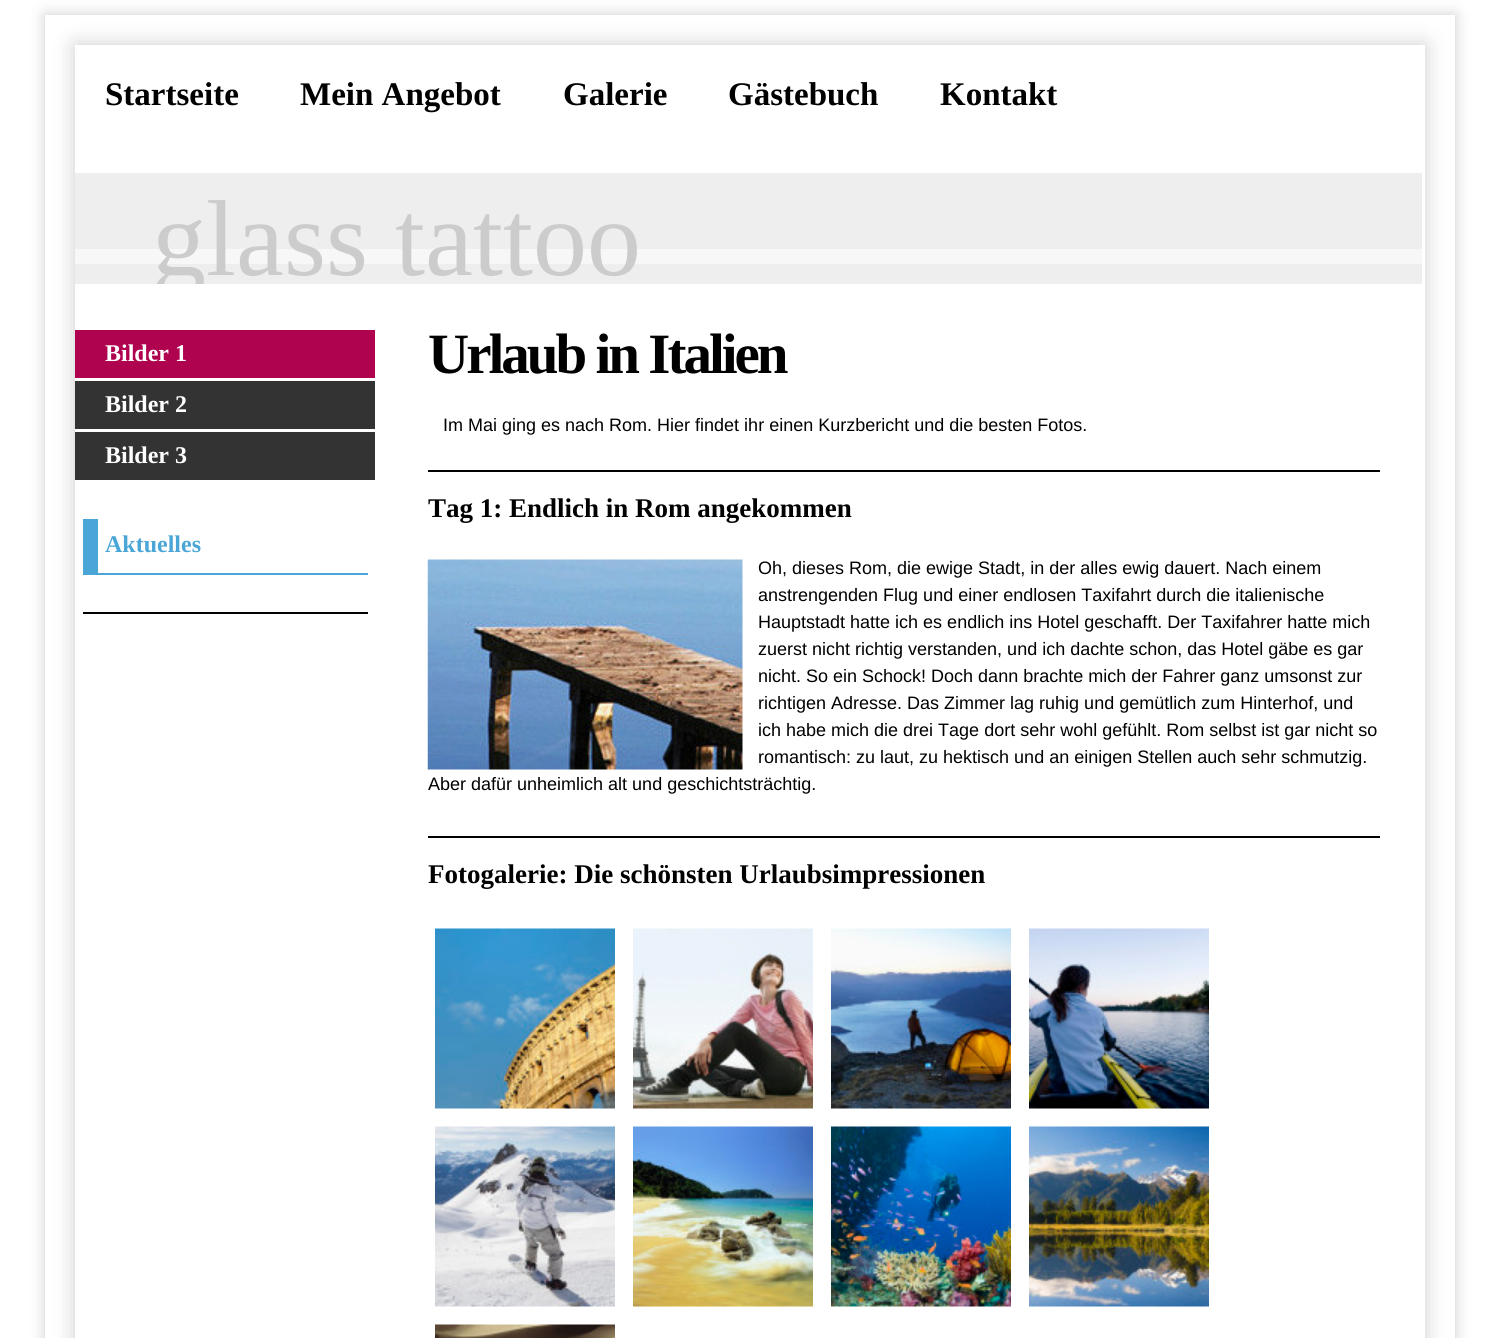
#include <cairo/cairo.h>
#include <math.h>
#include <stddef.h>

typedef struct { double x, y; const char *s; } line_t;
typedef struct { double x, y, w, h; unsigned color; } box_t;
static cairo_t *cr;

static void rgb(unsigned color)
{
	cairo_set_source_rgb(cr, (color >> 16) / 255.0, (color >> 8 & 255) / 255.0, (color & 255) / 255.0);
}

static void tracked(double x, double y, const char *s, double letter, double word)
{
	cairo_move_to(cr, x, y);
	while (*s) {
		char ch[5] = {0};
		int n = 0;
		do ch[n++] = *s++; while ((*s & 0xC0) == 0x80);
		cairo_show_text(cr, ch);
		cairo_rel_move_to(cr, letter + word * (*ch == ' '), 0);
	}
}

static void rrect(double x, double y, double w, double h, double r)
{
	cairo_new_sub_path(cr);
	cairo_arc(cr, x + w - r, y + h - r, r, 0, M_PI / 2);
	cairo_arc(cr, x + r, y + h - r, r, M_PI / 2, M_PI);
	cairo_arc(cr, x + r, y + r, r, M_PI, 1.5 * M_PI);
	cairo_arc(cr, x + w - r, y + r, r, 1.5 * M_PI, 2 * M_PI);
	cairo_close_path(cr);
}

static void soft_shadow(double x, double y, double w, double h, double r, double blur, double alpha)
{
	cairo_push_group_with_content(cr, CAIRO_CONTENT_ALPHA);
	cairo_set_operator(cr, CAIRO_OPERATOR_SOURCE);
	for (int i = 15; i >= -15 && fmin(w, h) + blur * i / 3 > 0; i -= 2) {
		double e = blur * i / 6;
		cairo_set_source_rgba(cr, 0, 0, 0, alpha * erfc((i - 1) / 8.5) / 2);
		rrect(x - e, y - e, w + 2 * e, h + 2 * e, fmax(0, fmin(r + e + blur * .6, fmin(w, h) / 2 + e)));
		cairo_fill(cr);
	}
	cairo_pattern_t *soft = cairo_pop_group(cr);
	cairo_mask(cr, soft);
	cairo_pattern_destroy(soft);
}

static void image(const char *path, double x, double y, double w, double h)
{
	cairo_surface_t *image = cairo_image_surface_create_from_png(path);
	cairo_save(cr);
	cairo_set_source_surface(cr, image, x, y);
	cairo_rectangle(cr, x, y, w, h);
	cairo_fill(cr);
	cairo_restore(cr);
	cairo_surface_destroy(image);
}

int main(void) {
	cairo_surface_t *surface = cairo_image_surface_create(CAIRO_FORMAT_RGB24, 1499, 1338);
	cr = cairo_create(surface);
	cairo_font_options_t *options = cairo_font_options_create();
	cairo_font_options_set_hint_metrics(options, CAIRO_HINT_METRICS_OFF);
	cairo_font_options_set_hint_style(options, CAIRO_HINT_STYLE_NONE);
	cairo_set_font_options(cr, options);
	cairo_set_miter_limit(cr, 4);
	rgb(0xffffff);
	cairo_paint(cr);
	cairo_save(cr);
	cairo_set_fill_rule(cr, CAIRO_FILL_RULE_EVEN_ODD);
	cairo_new_path(cr);
	cairo_move_to(cr, 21, 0);
	cairo_line_to(cr, 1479, 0);
	cairo_line_to(cr, 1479, 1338);
	cairo_line_to(cr, 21, 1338);
	cairo_close_path(cr);
	cairo_move_to(cr, 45, 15);
	cairo_line_to(cr, 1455, 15);
	cairo_line_to(cr, 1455, 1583);
	cairo_line_to(cr, 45, 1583);
	cairo_close_path(cr);
	cairo_clip(cr);
	rgb(0x000000);
	soft_shadow(45, 15, 1410, 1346, 0, 7.5, 0.2);
	cairo_restore(cr);
	cairo_save(cr);
	cairo_set_fill_rule(cr, CAIRO_FILL_RULE_EVEN_ODD);
	cairo_new_path(cr);
	cairo_move_to(cr, 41, 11);
	cairo_line_to(cr, 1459, 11);
	cairo_line_to(cr, 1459, 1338);
	cairo_line_to(cr, 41, 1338);
	cairo_close_path(cr);
	cairo_move_to(cr, 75, 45);
	cairo_line_to(cr, 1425, 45);
	cairo_line_to(cr, 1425, 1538);
	cairo_line_to(cr, 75, 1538);
	cairo_close_path(cr);
	cairo_clip(cr);
	rgb(0x000000);
	soft_shadow(75, 45, 1350, 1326, 0, 11, 0.2);
	cairo_restore(cr);
	{
		static const box_t items[] = {
			{75, 173, 1347, 111, 0xeeeeee},
			{75, 249, 1347, 15, 0xf7f7f7},
			{75, 330, 300, 48, 0xaf034f},
			{75, 381, 300, 48, 0x333333},
			{75, 432, 300, 48, 0x333333},
		};
		for (size_t i = 0; i < sizeof items / sizeof *items; i++) {
			rgb(items[i].color);
			cairo_rectangle(cr, items[i].x, items[i].y, items[i].w, items[i].h);
			cairo_fill(cr);
		}
	}
	cairo_save(cr);
	cairo_rectangle(cr, 83, 519, 285, 56);
	cairo_clip(cr);
	rgb(0x4aa6d6);
	cairo_set_fill_rule(cr, CAIRO_FILL_RULE_EVEN_ODD);
	cairo_new_path(cr);
	cairo_move_to(cr, -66, 370);
	cairo_line_to(cr, 516, 370);
	cairo_line_to(cr, 516, 723);
	cairo_line_to(cr, -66, 723);
	cairo_close_path(cr);
	cairo_move_to(cr, 98, 518);
	cairo_line_to(cr, 382, 518);
	cairo_line_to(cr, 382, 573);
	cairo_line_to(cr, 98, 573);
	cairo_close_path(cr);
	cairo_fill(cr);
	cairo_restore(cr);
	rgb(0x000000);
	cairo_rectangle(cr, 83, 612, 285, 2);
	cairo_fill(cr);
	cairo_rectangle(cr, 428, 470, 952, 2);
	cairo_fill(cr);
	image("img/1.png", 427, 559, 316, 211);
	cairo_rectangle(cr, 428, 836, 952, 2);
	cairo_fill(cr);
	image("img/2.png", 435, 928, 180, 181);
	image("img/3.png", 633, 928, 180, 181);
	image("img/4.png", 831, 928, 180, 181);
	image("img/5.png", 1029, 928, 180, 181);
	image("img/6.png", 435, 1126, 180, 181);
	image("img/7.png", 633, 1126, 180, 181);
	image("img/8.png", 831, 1126, 180, 181);
	image("img/9.png", 1029, 1126, 180, 181);
	image("img/10.png", 435, 1324, 180, 14);
	cairo_select_font_face(cr, "Liberation Serif", CAIRO_FONT_SLANT_NORMAL, CAIRO_FONT_WEIGHT_BOLD);
	cairo_set_font_size(cr, 33);
	{
		static const line_t items[] = {
			{105, 105, "Startseite"},
			{300, 105, "Mein Angebot"},
			{563, 105, "Galerie"},
			{728, 105, "Gästebuch"},
			{940, 105, "Kontakt"},
		};
		for (size_t i = 0; i < sizeof items / sizeof *items; i++) {
			cairo_move_to(cr, items[i].x, items[i].y);
			cairo_show_text(cr, items[i].s);
		}
	}
	cairo_save(cr);
	cairo_rectangle(cr, 75, 173, 1347, 111);
	cairo_clip(cr);
	cairo_select_font_face(cr, "Liberation Serif", CAIRO_FONT_SLANT_NORMAL, CAIRO_FONT_WEIGHT_NORMAL);
	cairo_set_font_size(cr, 108);
	rgb(0xcccccc);
	cairo_move_to(cr, 152, 275);
	cairo_show_text(cr, "glass tattoo");
	cairo_restore(cr);
	cairo_set_font_size(cr, 24);
	rgb(0xffffff);
	{
		static const line_t items[] = {
			{105, 361, "Bilder 1"},
			{105, 412, "Bilder 2"},
			{105, 463, "Bilder 3"},
		};
		for (size_t i = 0; i < sizeof items / sizeof *items; i++) {
			cairo_move_to(cr, items[i].x, items[i].y);
			cairo_show_text(cr, items[i].s);
		}
	}
	rgb(0x4aa6d6);
	cairo_move_to(cr, 105, 552);
	cairo_show_text(cr, "Aktuelles");
	cairo_set_font_size(cr, 57);
	rgb(0x000000);
	tracked(428, 373, "Urlaub in Italien", -3, 0);
	cairo_select_font_face(cr, "Liberation Sans", CAIRO_FONT_SLANT_NORMAL, CAIRO_FONT_WEIGHT_NORMAL);
	cairo_set_font_size(cr, 18);
	cairo_move_to(cr, 443, 431);
	cairo_show_text(cr, "Im Mai ging es nach Rom. Hier findet ihr einen Kurzbericht und die besten Fotos.");
	cairo_select_font_face(cr, "Liberation Serif", CAIRO_FONT_SLANT_NORMAL, CAIRO_FONT_WEIGHT_BOLD);
	cairo_set_font_size(cr, 27);
	cairo_move_to(cr, 428, 517);
	cairo_show_text(cr, "Tag 1: Endlich in Rom angekommen");
	cairo_select_font_face(cr, "Liberation Sans", CAIRO_FONT_SLANT_NORMAL, CAIRO_FONT_WEIGHT_NORMAL);
	cairo_set_font_size(cr, 18);
	{
		static const line_t items[] = {
			{758, 574, "Oh, dieses Rom, die ewige Stadt, in der alles ewig dauert. Nach einem"},
			{758, 601, "anstrengenden Flug und einer endlosen Taxifahrt durch die italienische"},
			{758, 628, "Hauptstadt hatte ich es endlich ins Hotel geschafft. Der Taxifahrer hatte mich"},
			{758, 655, "zuerst nicht richtig verstanden, und ich dachte schon, das Hotel gäbe es gar"},
			{758, 682, "nicht. So ein Schock! Doch dann brachte mich der Fahrer ganz umsonst zur"},
			{758, 709, "richtigen Adresse. Das Zimmer lag ruhig und gemütlich zum Hinterhof, und"},
			{758, 736, "ich habe mich die drei Tage dort sehr wohl gefühlt. Rom selbst ist gar nicht so"},
			{758, 763, "romantisch: zu laut, zu hektisch und an einigen Stellen auch sehr schmutzig."},
			{428, 790, "Aber dafür unheimlich alt und geschichtsträchtig."},
		};
		for (size_t i = 0; i < sizeof items / sizeof *items; i++) {
			cairo_move_to(cr, items[i].x, items[i].y);
			cairo_show_text(cr, items[i].s);
		}
	}
	cairo_select_font_face(cr, "Liberation Serif", CAIRO_FONT_SLANT_NORMAL, CAIRO_FONT_WEIGHT_BOLD);
	cairo_set_font_size(cr, 27);
	cairo_move_to(cr, 428, 883);
	cairo_show_text(cr, "Fotogalerie: Die schönsten Urlaubsimpressionen");
	cairo_surface_write_to_png(surface, "page.png");
	cairo_font_options_destroy(options);
	cairo_destroy(cr);
	cairo_surface_destroy(surface);
	return 0;
}
